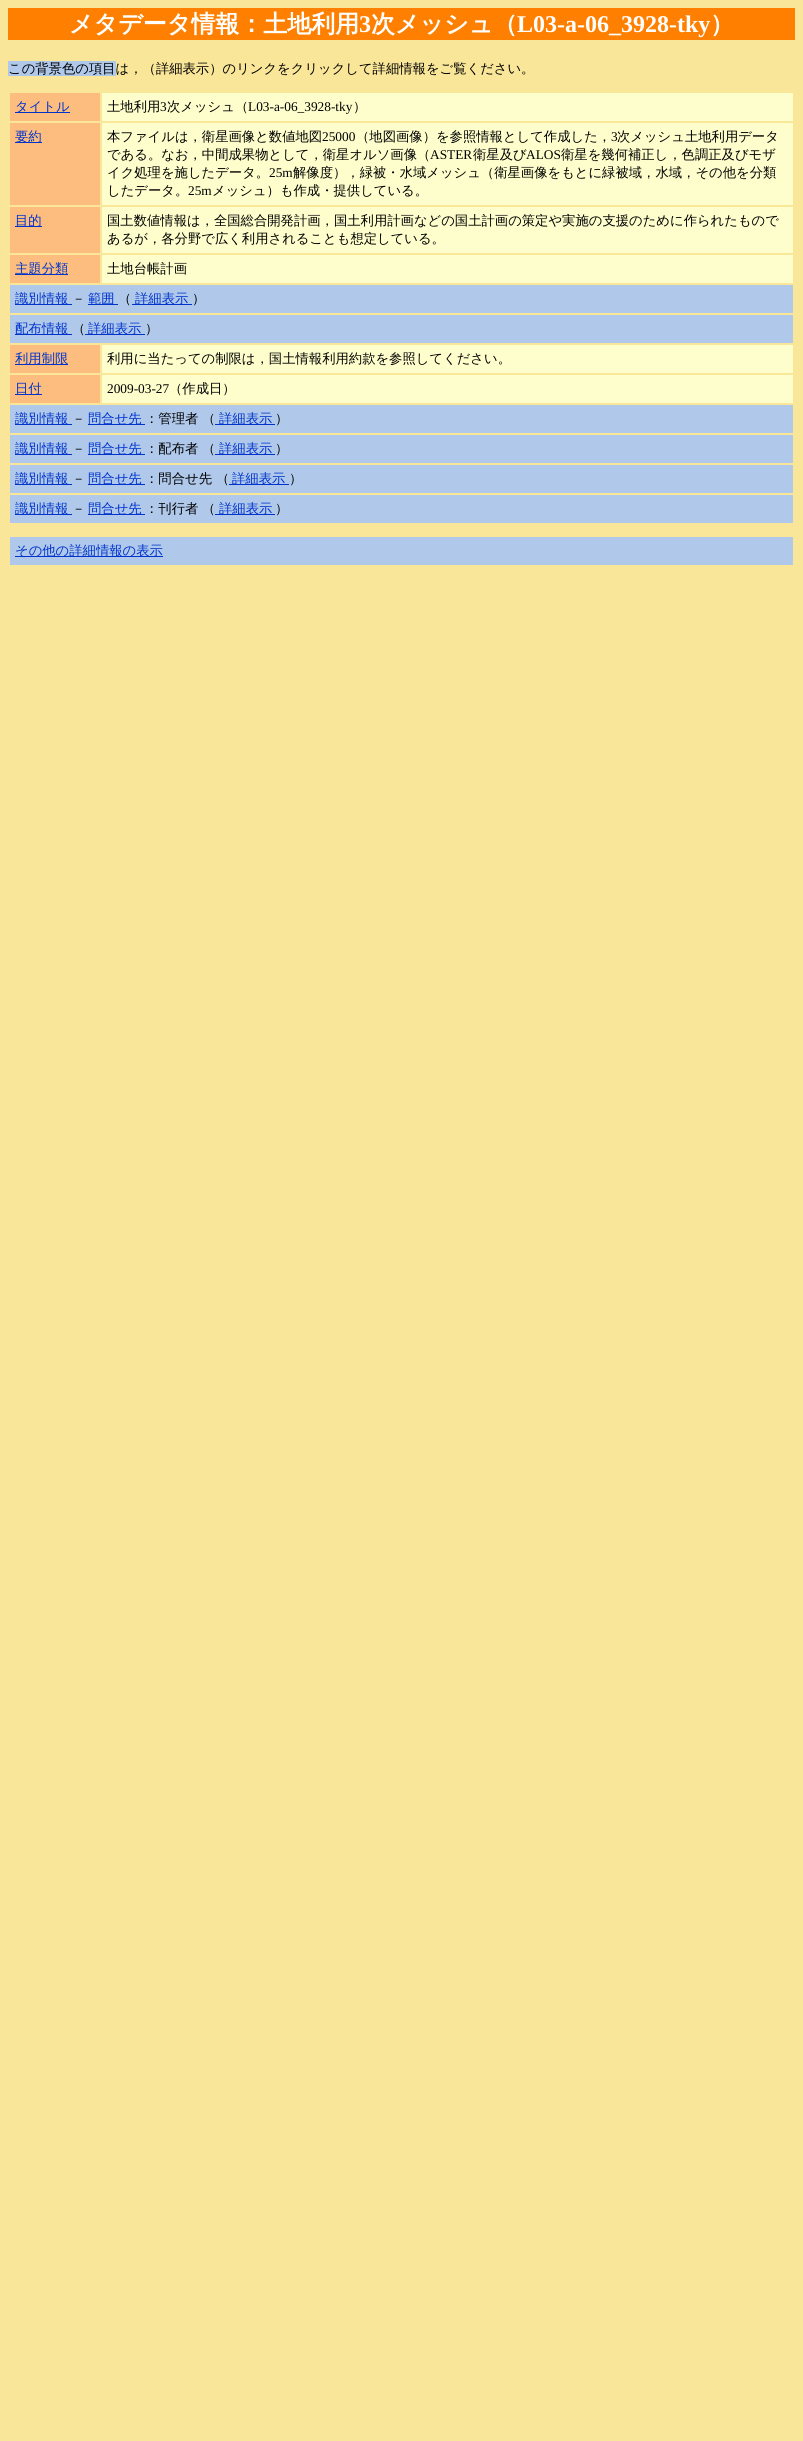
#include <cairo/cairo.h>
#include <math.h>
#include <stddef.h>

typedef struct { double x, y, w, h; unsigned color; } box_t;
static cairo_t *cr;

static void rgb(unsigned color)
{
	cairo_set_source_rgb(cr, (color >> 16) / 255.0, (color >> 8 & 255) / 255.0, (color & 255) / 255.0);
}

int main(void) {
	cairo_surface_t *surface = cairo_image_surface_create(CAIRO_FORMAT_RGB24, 803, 2441);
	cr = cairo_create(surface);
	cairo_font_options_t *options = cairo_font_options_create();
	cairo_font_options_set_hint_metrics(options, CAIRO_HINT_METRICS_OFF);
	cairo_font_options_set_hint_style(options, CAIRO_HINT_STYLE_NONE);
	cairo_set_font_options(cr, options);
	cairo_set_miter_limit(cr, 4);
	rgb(0xf9e698);
	cairo_paint(cr);
	{
		static const box_t items[] = {
			{8, 8, 787, 32, 0xff8000},
			{8, 61, 108, 15, 0xb0c9eb},
			{10, 93, 90, 28, 0xfcbd7e},
			{15, 112, 55, 1, 0x0033cc},
			{102, 93, 691, 28, 0xfefecc},
			{10, 123, 90, 82, 0xfcbd7e},
			{15, 142, 27, 1, 0x0033cc},
			{102, 123, 691, 82, 0xfefecc},
			{10, 207, 90, 46, 0xfcbd7e},
			{15, 226, 27, 1, 0x0033cc},
			{102, 207, 691, 46, 0xfefecc},
			{10, 255, 90, 28, 0xfcbd7e},
			{15, 274, 53, 1, 0x0033cc},
			{102, 255, 691, 28, 0xfefecc},
			{10, 285, 783, 28, 0xb0c9eb},
			{15, 304, 57, 1, 0x0033cc},
			{88, 304, 30, 1, 0x0033cc},
			{132, 304, 60, 1, 0x0033cc},
			{10, 315, 783, 28, 0xb0c9eb},
			{15, 334, 57, 1, 0x0033cc},
			{85, 334, 60, 1, 0x0033cc},
			{10, 345, 90, 28, 0xfcbd7e},
			{15, 364, 53, 1, 0x0033cc},
			{102, 345, 691, 28, 0xfefecc},
			{10, 375, 90, 28, 0xfcbd7e},
			{15, 394, 27, 1, 0x0033cc},
			{102, 375, 691, 28, 0xfefecc},
			{10, 405, 783, 28, 0xb0c9eb},
			{15, 424, 57, 1, 0x0033cc},
			{88, 424, 57, 1, 0x0033cc},
			{215, 424, 60, 1, 0x0033cc},
			{10, 435, 783, 28, 0xb0c9eb},
			{15, 454, 57, 1, 0x0033cc},
			{88, 454, 57, 1, 0x0033cc},
			{215, 454, 60, 1, 0x0033cc},
			{10, 465, 783, 28, 0xb0c9eb},
			{15, 484, 57, 1, 0x0033cc},
			{88, 484, 57, 1, 0x0033cc},
			{229, 484, 60, 1, 0x0033cc},
			{10, 495, 783, 28, 0xb0c9eb},
			{15, 514, 57, 1, 0x0033cc},
			{88, 514, 57, 1, 0x0033cc},
			{215, 514, 60, 1, 0x0033cc},
			{10, 537, 783, 28, 0xb0c9eb},
			{15, 556, 148, 1, 0x0033cc},
		};
		for (size_t i = 0; i < sizeof items / sizeof *items; i++) {
			rgb(items[i].color);
			cairo_rectangle(cr, items[i].x, items[i].y, items[i].w, items[i].h);
			cairo_fill(cr);
		}
	}
	cairo_select_font_face(cr, "WenQuanYi Zen Hei", CAIRO_FONT_SLANT_NORMAL, CAIRO_FONT_WEIGHT_BOLD);
	cairo_set_font_size(cr, 24);
	rgb(0xffffff);
	cairo_move_to(cr, 69, 32);
	cairo_show_text(cr, "メタデータ情報：土地利用");
	cairo_select_font_face(cr, "Liberation Serif", CAIRO_FONT_SLANT_NORMAL, CAIRO_FONT_WEIGHT_BOLD);
	cairo_move_to(cr, 359, 32);
	cairo_show_text(cr, "3");
	cairo_select_font_face(cr, "WenQuanYi Zen Hei", CAIRO_FONT_SLANT_NORMAL, CAIRO_FONT_WEIGHT_BOLD);
	cairo_move_to(cr, 371, 32);
	cairo_show_text(cr, "次メッシュ（");
	cairo_select_font_face(cr, "Liberation Serif", CAIRO_FONT_SLANT_NORMAL, CAIRO_FONT_WEIGHT_BOLD);
	cairo_move_to(cr, 517, 32);
	cairo_show_text(cr, "L03-a-06_3928-tky");
	cairo_select_font_face(cr, "WenQuanYi Zen Hei", CAIRO_FONT_SLANT_NORMAL, CAIRO_FONT_WEIGHT_BOLD);
	cairo_move_to(cr, 710, 32);
	cairo_show_text(cr, "）");
	cairo_select_font_face(cr, "WenQuanYi Zen Hei Medium", CAIRO_FONT_SLANT_NORMAL, CAIRO_FONT_WEIGHT_NORMAL);
	cairo_set_font_size(cr, 13.33);
	rgb(0x000000);
	cairo_move_to(cr, 8, 73);
	cairo_show_text(cr, "この背景色の項目は，（詳細表示）のリンクをクリックして詳細情報をご覧ください。");
	rgb(0x0033cc);
	cairo_move_to(cr, 15, 111);
	cairo_show_text(cr, "タイトル");
	rgb(0x000000);
	cairo_move_to(cr, 107, 111);
	cairo_show_text(cr, "土地利用");
	cairo_select_font_face(cr, "Liberation Serif", CAIRO_FONT_SLANT_NORMAL, CAIRO_FONT_WEIGHT_NORMAL);
	cairo_move_to(cr, 160, 111);
	cairo_show_text(cr, "3");
	cairo_select_font_face(cr, "WenQuanYi Zen Hei Medium", CAIRO_FONT_SLANT_NORMAL, CAIRO_FONT_WEIGHT_NORMAL);
	cairo_move_to(cr, 167, 111);
	cairo_show_text(cr, "次メッシュ（");
	cairo_select_font_face(cr, "Liberation Serif", CAIRO_FONT_SLANT_NORMAL, CAIRO_FONT_WEIGHT_NORMAL);
	cairo_move_to(cr, 248, 111);
	cairo_show_text(cr, "L03-a-06_3928-tky");
	cairo_select_font_face(cr, "WenQuanYi Zen Hei Medium", CAIRO_FONT_SLANT_NORMAL, CAIRO_FONT_WEIGHT_NORMAL);
	cairo_move_to(cr, 353, 111);
	cairo_show_text(cr, "）");
	rgb(0x0033cc);
	cairo_move_to(cr, 15, 141);
	cairo_show_text(cr, "要約");
	rgb(0x000000);
	cairo_move_to(cr, 107, 141);
	cairo_show_text(cr, "本ファイルは，衛星画像と数値地図");
	cairo_select_font_face(cr, "Liberation Serif", CAIRO_FONT_SLANT_NORMAL, CAIRO_FONT_WEIGHT_NORMAL);
	cairo_move_to(cr, 322, 141);
	cairo_show_text(cr, "25000");
	cairo_select_font_face(cr, "WenQuanYi Zen Hei Medium", CAIRO_FONT_SLANT_NORMAL, CAIRO_FONT_WEIGHT_NORMAL);
	cairo_move_to(cr, 356, 141);
	cairo_show_text(cr, "（地図画像）を参照情報として作成した，");
	cairo_select_font_face(cr, "Liberation Serif", CAIRO_FONT_SLANT_NORMAL, CAIRO_FONT_WEIGHT_NORMAL);
	cairo_move_to(cr, 611, 141);
	cairo_show_text(cr, "3");
	cairo_select_font_face(cr, "WenQuanYi Zen Hei Medium", CAIRO_FONT_SLANT_NORMAL, CAIRO_FONT_WEIGHT_NORMAL);
	cairo_move_to(cr, 617, 141);
	cairo_show_text(cr, "次メッシュ土地利用データ");
	cairo_move_to(cr, 107, 159);
	cairo_show_text(cr, "である。なお，中間成果物として，衛星オルソ画像（");
	cairo_select_font_face(cr, "Liberation Serif", CAIRO_FONT_SLANT_NORMAL, CAIRO_FONT_WEIGHT_NORMAL);
	cairo_move_to(cr, 430, 159);
	cairo_show_text(cr, "ASTER");
	cairo_select_font_face(cr, "WenQuanYi Zen Hei Medium", CAIRO_FONT_SLANT_NORMAL, CAIRO_FONT_WEIGHT_NORMAL);
	cairo_move_to(cr, 473, 159);
	cairo_show_text(cr, "衛星及び");
	cairo_select_font_face(cr, "Liberation Serif", CAIRO_FONT_SLANT_NORMAL, CAIRO_FONT_WEIGHT_NORMAL);
	cairo_move_to(cr, 526, 159);
	cairo_show_text(cr, "ALOS");
	cairo_select_font_face(cr, "WenQuanYi Zen Hei Medium", CAIRO_FONT_SLANT_NORMAL, CAIRO_FONT_WEIGHT_NORMAL);
	cairo_move_to(cr, 561, 159);
	cairo_show_text(cr, "衛星を幾何補正し，色調正及びモザ");
	cairo_move_to(cr, 107, 177);
	cairo_show_text(cr, "イク処理を施したデータ。");
	cairo_select_font_face(cr, "Liberation Serif", CAIRO_FONT_SLANT_NORMAL, CAIRO_FONT_WEIGHT_NORMAL);
	cairo_move_to(cr, 269, 177);
	cairo_show_text(cr, "25m");
	cairo_select_font_face(cr, "WenQuanYi Zen Hei Medium", CAIRO_FONT_SLANT_NORMAL, CAIRO_FONT_WEIGHT_NORMAL);
	cairo_move_to(cr, 293, 177);
	cairo_show_text(cr, "解像度），緑被・水域メッシュ（衛星画像をもとに緑被域，水域，その他を分類");
	cairo_move_to(cr, 107, 195);
	cairo_show_text(cr, "したデータ。");
	cairo_select_font_face(cr, "Liberation Serif", CAIRO_FONT_SLANT_NORMAL, CAIRO_FONT_WEIGHT_NORMAL);
	cairo_move_to(cr, 188, 195);
	cairo_show_text(cr, "25m");
	cairo_select_font_face(cr, "WenQuanYi Zen Hei Medium", CAIRO_FONT_SLANT_NORMAL, CAIRO_FONT_WEIGHT_NORMAL);
	cairo_move_to(cr, 212, 195);
	cairo_show_text(cr, "メッシュ）も作成・提供している。");
	rgb(0x0033cc);
	cairo_move_to(cr, 15, 225);
	cairo_show_text(cr, "目的");
	rgb(0x000000);
	cairo_move_to(cr, 107, 225);
	cairo_show_text(cr, "国土数値情報は，全国総合開発計画，国土利用計画などの国土計画の策定や実施の支援のために作られたもので");
	cairo_move_to(cr, 107, 243);
	cairo_show_text(cr, "あるが，各分野で広く利用されることも想定している。");
	rgb(0x0033cc);
	cairo_move_to(cr, 15, 273);
	cairo_show_text(cr, "主題分類");
	rgb(0x000000);
	cairo_move_to(cr, 107, 273);
	cairo_show_text(cr, "土地台帳計画");
	rgb(0x0033cc);
	cairo_move_to(cr, 15, 303);
	cairo_show_text(cr, "識別情報");
	rgb(0x000000);
	cairo_move_to(cr, 72, 303);
	cairo_show_text(cr, "－");
	rgb(0x0033cc);
	cairo_move_to(cr, 88, 303);
	cairo_show_text(cr, "範囲");
	rgb(0x000000);
	cairo_move_to(cr, 118, 303);
	cairo_show_text(cr, "（");
	rgb(0x0033cc);
	cairo_move_to(cr, 135, 303);
	cairo_show_text(cr, "詳細表示");
	rgb(0x000000);
	cairo_move_to(cr, 192, 303);
	cairo_show_text(cr, "）");
	rgb(0x0033cc);
	cairo_move_to(cr, 15, 333);
	cairo_show_text(cr, "配布情報");
	rgb(0x000000);
	cairo_move_to(cr, 72, 333);
	cairo_show_text(cr, "（");
	rgb(0x0033cc);
	cairo_move_to(cr, 88, 333);
	cairo_show_text(cr, "詳細表示");
	rgb(0x000000);
	cairo_move_to(cr, 145, 333);
	cairo_show_text(cr, "）");
	rgb(0x0033cc);
	cairo_move_to(cr, 15, 363);
	cairo_show_text(cr, "利用制限");
	rgb(0x000000);
	cairo_move_to(cr, 107, 363);
	cairo_show_text(cr, "利用に当たっての制限は，国土情報利用約款を参照してください。");
	rgb(0x0033cc);
	cairo_move_to(cr, 15, 393);
	cairo_show_text(cr, "日付");
	cairo_select_font_face(cr, "Liberation Serif", CAIRO_FONT_SLANT_NORMAL, CAIRO_FONT_WEIGHT_NORMAL);
	rgb(0x000000);
	cairo_move_to(cr, 107, 393);
	cairo_show_text(cr, "2009-03-27");
	cairo_select_font_face(cr, "WenQuanYi Zen Hei Medium", CAIRO_FONT_SLANT_NORMAL, CAIRO_FONT_WEIGHT_NORMAL);
	cairo_move_to(cr, 169, 393);
	cairo_show_text(cr, "（作成日）");
	rgb(0x0033cc);
	cairo_move_to(cr, 15, 423);
	cairo_show_text(cr, "識別情報");
	rgb(0x000000);
	cairo_move_to(cr, 72, 423);
	cairo_show_text(cr, "－");
	rgb(0x0033cc);
	cairo_move_to(cr, 88, 423);
	cairo_show_text(cr, "問合せ先");
	rgb(0x000000);
	cairo_move_to(cr, 145, 423);
	cairo_show_text(cr, "：管理者");
	cairo_move_to(cr, 202, 423);
	cairo_show_text(cr, "（");
	rgb(0x0033cc);
	cairo_move_to(cr, 219, 423);
	cairo_show_text(cr, "詳細表示");
	rgb(0x000000);
	cairo_move_to(cr, 275, 423);
	cairo_show_text(cr, "）");
	rgb(0x0033cc);
	cairo_move_to(cr, 15, 453);
	cairo_show_text(cr, "識別情報");
	rgb(0x000000);
	cairo_move_to(cr, 72, 453);
	cairo_show_text(cr, "－");
	rgb(0x0033cc);
	cairo_move_to(cr, 88, 453);
	cairo_show_text(cr, "問合せ先");
	rgb(0x000000);
	cairo_move_to(cr, 145, 453);
	cairo_show_text(cr, "：配布者");
	cairo_move_to(cr, 202, 453);
	cairo_show_text(cr, "（");
	rgb(0x0033cc);
	cairo_move_to(cr, 219, 453);
	cairo_show_text(cr, "詳細表示");
	rgb(0x000000);
	cairo_move_to(cr, 275, 453);
	cairo_show_text(cr, "）");
	rgb(0x0033cc);
	cairo_move_to(cr, 15, 483);
	cairo_show_text(cr, "識別情報");
	rgb(0x000000);
	cairo_move_to(cr, 72, 483);
	cairo_show_text(cr, "－");
	rgb(0x0033cc);
	cairo_move_to(cr, 88, 483);
	cairo_show_text(cr, "問合せ先");
	rgb(0x000000);
	cairo_move_to(cr, 145, 483);
	cairo_show_text(cr, "：問合せ先");
	cairo_move_to(cr, 216, 483);
	cairo_show_text(cr, "（");
	rgb(0x0033cc);
	cairo_move_to(cr, 232, 483);
	cairo_show_text(cr, "詳細表示");
	rgb(0x000000);
	cairo_move_to(cr, 289, 483);
	cairo_show_text(cr, "）");
	rgb(0x0033cc);
	cairo_move_to(cr, 15, 513);
	cairo_show_text(cr, "識別情報");
	rgb(0x000000);
	cairo_move_to(cr, 72, 513);
	cairo_show_text(cr, "－");
	rgb(0x0033cc);
	cairo_move_to(cr, 88, 513);
	cairo_show_text(cr, "問合せ先");
	rgb(0x000000);
	cairo_move_to(cr, 145, 513);
	cairo_show_text(cr, "：刊行者");
	cairo_move_to(cr, 202, 513);
	cairo_show_text(cr, "（");
	rgb(0x0033cc);
	cairo_move_to(cr, 219, 513);
	cairo_show_text(cr, "詳細表示");
	rgb(0x000000);
	cairo_move_to(cr, 275, 513);
	cairo_show_text(cr, "）");
	rgb(0x0033cc);
	cairo_move_to(cr, 15, 555);
	cairo_show_text(cr, "その他の詳細情報の表示");
	cairo_surface_write_to_png(surface, "page.png");
	cairo_font_options_destroy(options);
	cairo_destroy(cr);
	cairo_surface_destroy(surface);
	return 0;
}
